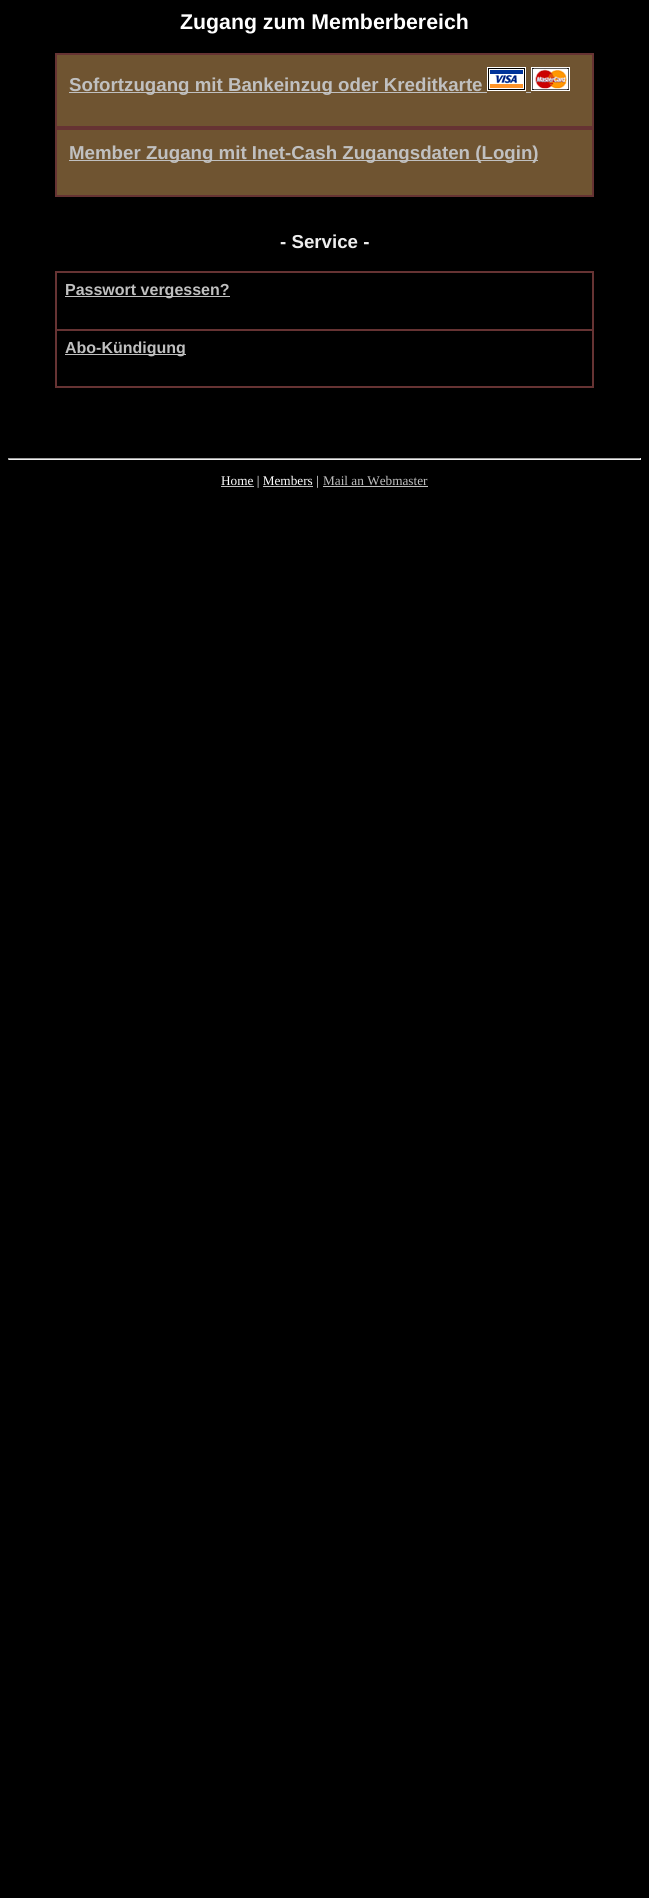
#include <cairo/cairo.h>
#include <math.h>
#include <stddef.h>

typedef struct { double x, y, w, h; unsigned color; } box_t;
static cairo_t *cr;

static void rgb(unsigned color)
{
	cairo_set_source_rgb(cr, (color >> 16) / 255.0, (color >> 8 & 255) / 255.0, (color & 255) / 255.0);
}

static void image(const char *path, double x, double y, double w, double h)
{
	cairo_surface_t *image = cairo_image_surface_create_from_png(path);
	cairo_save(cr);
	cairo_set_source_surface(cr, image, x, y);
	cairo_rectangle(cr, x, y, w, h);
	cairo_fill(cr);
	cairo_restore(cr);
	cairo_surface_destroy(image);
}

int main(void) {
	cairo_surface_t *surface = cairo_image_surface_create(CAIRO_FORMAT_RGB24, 649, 1898);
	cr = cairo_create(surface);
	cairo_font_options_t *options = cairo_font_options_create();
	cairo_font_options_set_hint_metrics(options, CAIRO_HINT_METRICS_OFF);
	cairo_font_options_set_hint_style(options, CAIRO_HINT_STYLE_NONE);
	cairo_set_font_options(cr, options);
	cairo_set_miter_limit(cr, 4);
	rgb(0x000000);
	cairo_paint(cr);
	cairo_rectangle(cr, 55.5, 53.5, 538, 74);
	rgb(0x663333);
	cairo_set_line_width(cr, 1);
	cairo_stroke(cr);
	rgb(0x6f5431);
	cairo_rectangle(cr, 56.5, 54.5, 536, 72);
	cairo_fill_preserve(cr);
	rgb(0x663333);
	cairo_stroke(cr);
	rgb(0xc0c0c0);
	cairo_rectangle(cr, 69, 92, 418, 1);
	cairo_fill(cr);
	cairo_rectangle(cr, 526, 92, 5, 1);
	cairo_fill(cr);
	image("img/1.png", 487, 67, 39, 24);
	image("img/2.png", 531, 67, 39, 24);
	cairo_rectangle(cr, 55.5, 128.5, 538, 68);
	rgb(0x663333);
	cairo_stroke(cr);
	rgb(0x6f5431);
	cairo_rectangle(cr, 56.5, 129.5, 536, 66);
	cairo_fill_preserve(cr);
	rgb(0x663333);
	cairo_stroke(cr);
	rgb(0xc0c0c0);
	cairo_rectangle(cr, 69, 160, 469, 1);
	cairo_fill(cr);
	cairo_rectangle(cr, 55.5, 271.5, 538, 116);
	rgb(0x663333);
	cairo_stroke(cr);
	cairo_rectangle(cr, 56.5, 272.5, 536, 57);
	cairo_stroke(cr);
	rgb(0xc0c0c0);
	cairo_rectangle(cr, 65, 296, 165, 1);
	cairo_fill(cr);
	cairo_rectangle(cr, 56.5, 330.5, 536, 56);
	rgb(0x663333);
	cairo_stroke(cr);
	{
		static const box_t items[] = {
			{65, 354, 121, 1, 0xc0c0c0},
			{8, 458, 633, 1, 0x9f9f9f},
			{640, 458, 1, 2, 0xeeeeee},
			{8, 459, 633, 1, 0xeeeeee},
			{8, 458, 1, 2, 0x9f9f9f},
			{221, 486, 33, 1, 0xc0c0c0},
			{323, 486, 105, 1, 0xc0c0c0},
		};
		for (size_t i = 0; i < sizeof items / sizeof *items; i++) {
			rgb(items[i].color);
			cairo_rectangle(cr, items[i].x, items[i].y, items[i].w, items[i].h);
			cairo_fill(cr);
		}
	}
	cairo_select_font_face(cr, "Liberation Sans", CAIRO_FONT_SLANT_NORMAL, CAIRO_FONT_WEIGHT_BOLD);
	cairo_set_font_size(cr, 21.3);
	rgb(0xffffff);
	cairo_move_to(cr, 180, 29);
	cairo_show_text(cr, "Zugang zum Memberbereich");
	cairo_set_font_size(cr, 18.7);
	rgb(0xc0c0c0);
	cairo_move_to(cr, 69, 91);
	cairo_show_text(cr, "Sofortzugang mit Bankeinzug oder Kreditkarte");
	cairo_move_to(cr, 69, 159);
	cairo_show_text(cr, "Member Zugang mit Inet-Cash Zugangsdaten (Login)");
	rgb(0xeeeeee);
	cairo_move_to(cr, 280, 248);
	cairo_show_text(cr, "- Service -");
	cairo_set_font_size(cr, 16);
	rgb(0xc0c0c0);
	cairo_move_to(cr, 65, 295);
	cairo_show_text(cr, "Passwort vergessen?");
	cairo_move_to(cr, 65, 353);
	cairo_show_text(cr, "Abo-Kündigung");
	cairo_select_font_face(cr, "Liberation Serif", CAIRO_FONT_SLANT_NORMAL, CAIRO_FONT_WEIGHT_NORMAL);
	cairo_set_font_size(cr, 13.25);
	rgb(0xffffff);
	cairo_move_to(cr, 221, 485);
	cairo_show_text(cr, "Home | Members |");
	rgb(0xc0c0c0);
	cairo_rectangle(cr, 263, 486, 50, 1);
	cairo_fill(cr);
	cairo_move_to(cr, 323, 485);
	cairo_show_text(cr, "Mail an Webmaster");
	cairo_surface_write_to_png(surface, "page.png");
	cairo_font_options_destroy(options);
	cairo_destroy(cr);
	cairo_surface_destroy(surface);
	return 0;
}
